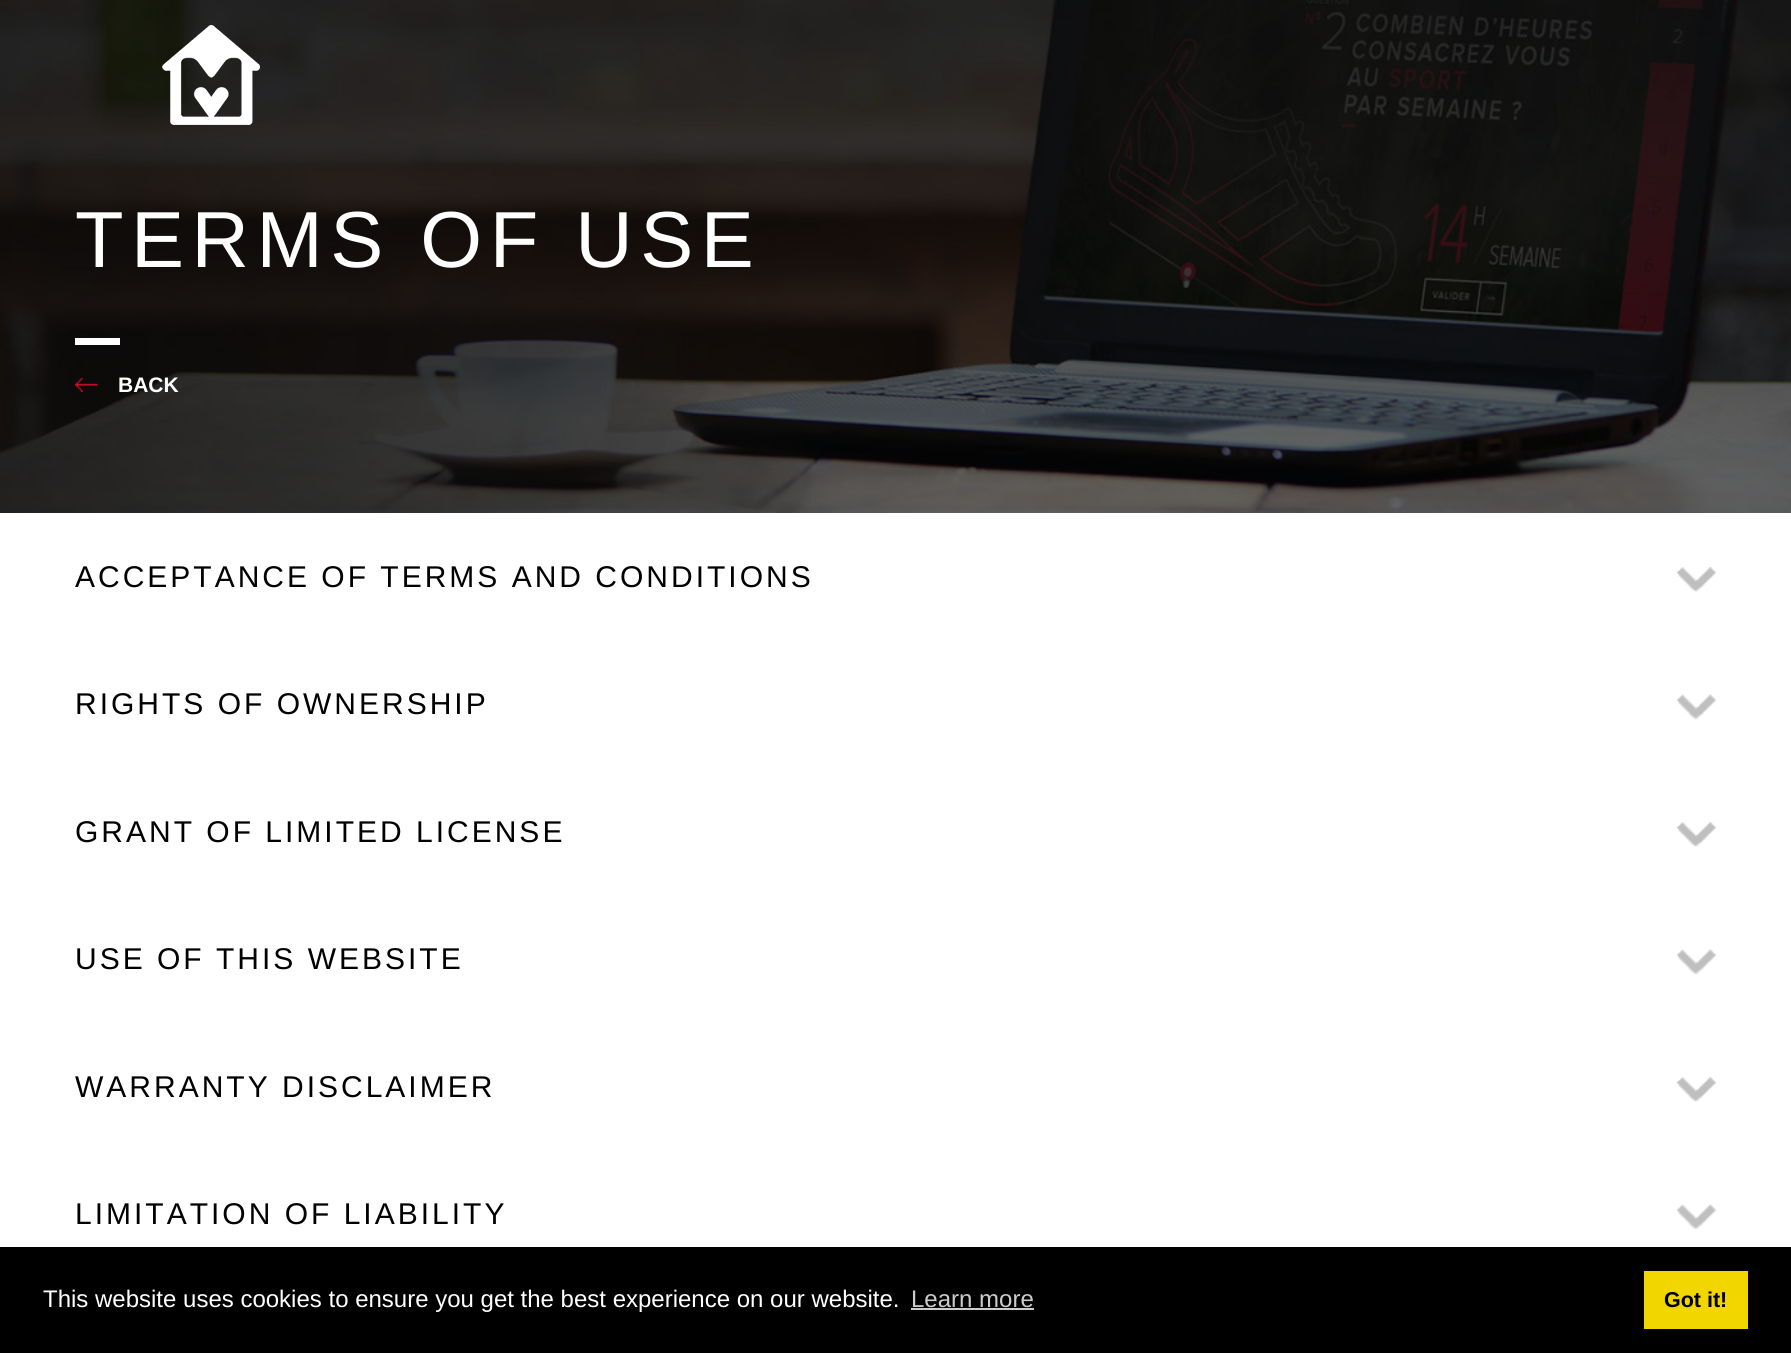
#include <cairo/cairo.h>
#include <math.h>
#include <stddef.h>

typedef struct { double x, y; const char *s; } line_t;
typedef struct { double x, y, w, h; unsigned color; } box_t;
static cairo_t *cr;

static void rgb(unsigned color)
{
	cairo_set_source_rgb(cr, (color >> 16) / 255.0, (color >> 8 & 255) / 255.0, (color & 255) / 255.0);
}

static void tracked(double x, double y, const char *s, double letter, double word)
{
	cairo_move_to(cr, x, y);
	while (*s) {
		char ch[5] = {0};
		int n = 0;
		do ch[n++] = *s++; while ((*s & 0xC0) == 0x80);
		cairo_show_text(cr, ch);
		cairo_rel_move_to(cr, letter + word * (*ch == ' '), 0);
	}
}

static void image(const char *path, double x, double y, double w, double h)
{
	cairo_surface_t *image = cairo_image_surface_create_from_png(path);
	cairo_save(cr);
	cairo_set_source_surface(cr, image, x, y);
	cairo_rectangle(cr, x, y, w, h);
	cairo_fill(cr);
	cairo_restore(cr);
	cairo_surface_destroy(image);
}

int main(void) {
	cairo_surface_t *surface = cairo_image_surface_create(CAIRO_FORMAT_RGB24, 1791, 1353);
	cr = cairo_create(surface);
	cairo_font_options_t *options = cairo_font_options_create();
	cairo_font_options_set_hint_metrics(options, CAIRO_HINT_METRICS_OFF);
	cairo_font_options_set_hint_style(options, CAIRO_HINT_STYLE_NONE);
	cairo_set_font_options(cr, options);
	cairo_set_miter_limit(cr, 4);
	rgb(0xffffff);
	cairo_paint(cr);
	image("img/2.png", 0, 0, 1791, 513);
	image("img/1.png", 162, 25, 98, 100);
	rgb(0xffffff);
	cairo_rectangle(cr, 75, 338, 45, 7);
	cairo_fill(cr);
	image("img/3.png", 75, 378, 23, 14);
	image("img/4.png", 1677, 567, 39, 25);
	image("img/5.png", 1677, 694, 39, 26);
	image("img/4.png", 1677, 822, 39, 25);
	image("img/5.png", 1677, 949, 39, 26);
	image("img/4.png", 1677, 1077, 39, 25);
	image("img/5.png", 1677, 1204, 39, 26);
	{
		static const box_t items[] = {
			{0, 1247, 1791, 106, 0x000000},
			{911, 1308, 123, 2, 0xcccccc},
			{1644, 1271, 104, 58, 0xf1d600},
		};
		for (size_t i = 0; i < sizeof items / sizeof *items; i++) {
			rgb(items[i].color);
			cairo_rectangle(cr, items[i].x, items[i].y, items[i].w, items[i].h);
			cairo_fill(cr);
		}
	}
	cairo_select_font_face(cr, "Liberation Sans", CAIRO_FONT_SLANT_NORMAL, CAIRO_FONT_WEIGHT_NORMAL);
	cairo_set_font_size(cr, 79.5);
	rgb(0xffffff);
	tracked(75, 267, "TERMS OF USE", 7.5, 0);
	cairo_select_font_face(cr, "Liberation Sans", CAIRO_FONT_SLANT_NORMAL, CAIRO_FONT_WEIGHT_BOLD);
	cairo_set_font_size(cr, 21);
	cairo_move_to(cr, 118, 392);
	cairo_show_text(cr, "BACK");
	cairo_select_font_face(cr, "Liberation Sans", CAIRO_FONT_SLANT_NORMAL, CAIRO_FONT_WEIGHT_NORMAL);
	cairo_set_font_size(cr, 30);
	rgb(0x000000);
	{
		static const line_t items[] = {
			{75, 587, "ACCEPTANCE OF TERMS AND CONDITIONS"},
			{75, 714, "RIGHTS OF OWNERSHIP"},
			{75, 842, "GRANT OF LIMITED LICENSE"},
			{75, 969, "USE OF THIS WEBSITE"},
			{75, 1097, "WARRANTY DISCLAIMER"},
			{75, 1224, "LIMITATION OF LIABILITY"},
		};
		for (size_t i = 0; i < sizeof items / sizeof *items; i++) {
			tracked(items[i].x, items[i].y, items[i].s, 3, 0);
		}
	}
	cairo_set_font_size(cr, 24);
	rgb(0xffffff);
	cairo_move_to(cr, 43, 1307);
	cairo_show_text(cr, "This website uses cookies to ensure you get the best experience on our website.");
	rgb(0xcccccc);
	cairo_move_to(cr, 911, 1307);
	cairo_show_text(cr, "Learn more");
	cairo_select_font_face(cr, "Liberation Sans", CAIRO_FONT_SLANT_NORMAL, CAIRO_FONT_WEIGHT_BOLD);
	cairo_set_font_size(cr, 21.5);
	rgb(0x000000);
	cairo_move_to(cr, 1664, 1307);
	cairo_show_text(cr, "Got it!");
	cairo_surface_write_to_png(surface, "page.png");
	cairo_font_options_destroy(options);
	cairo_destroy(cr);
	cairo_surface_destroy(surface);
	return 0;
}
